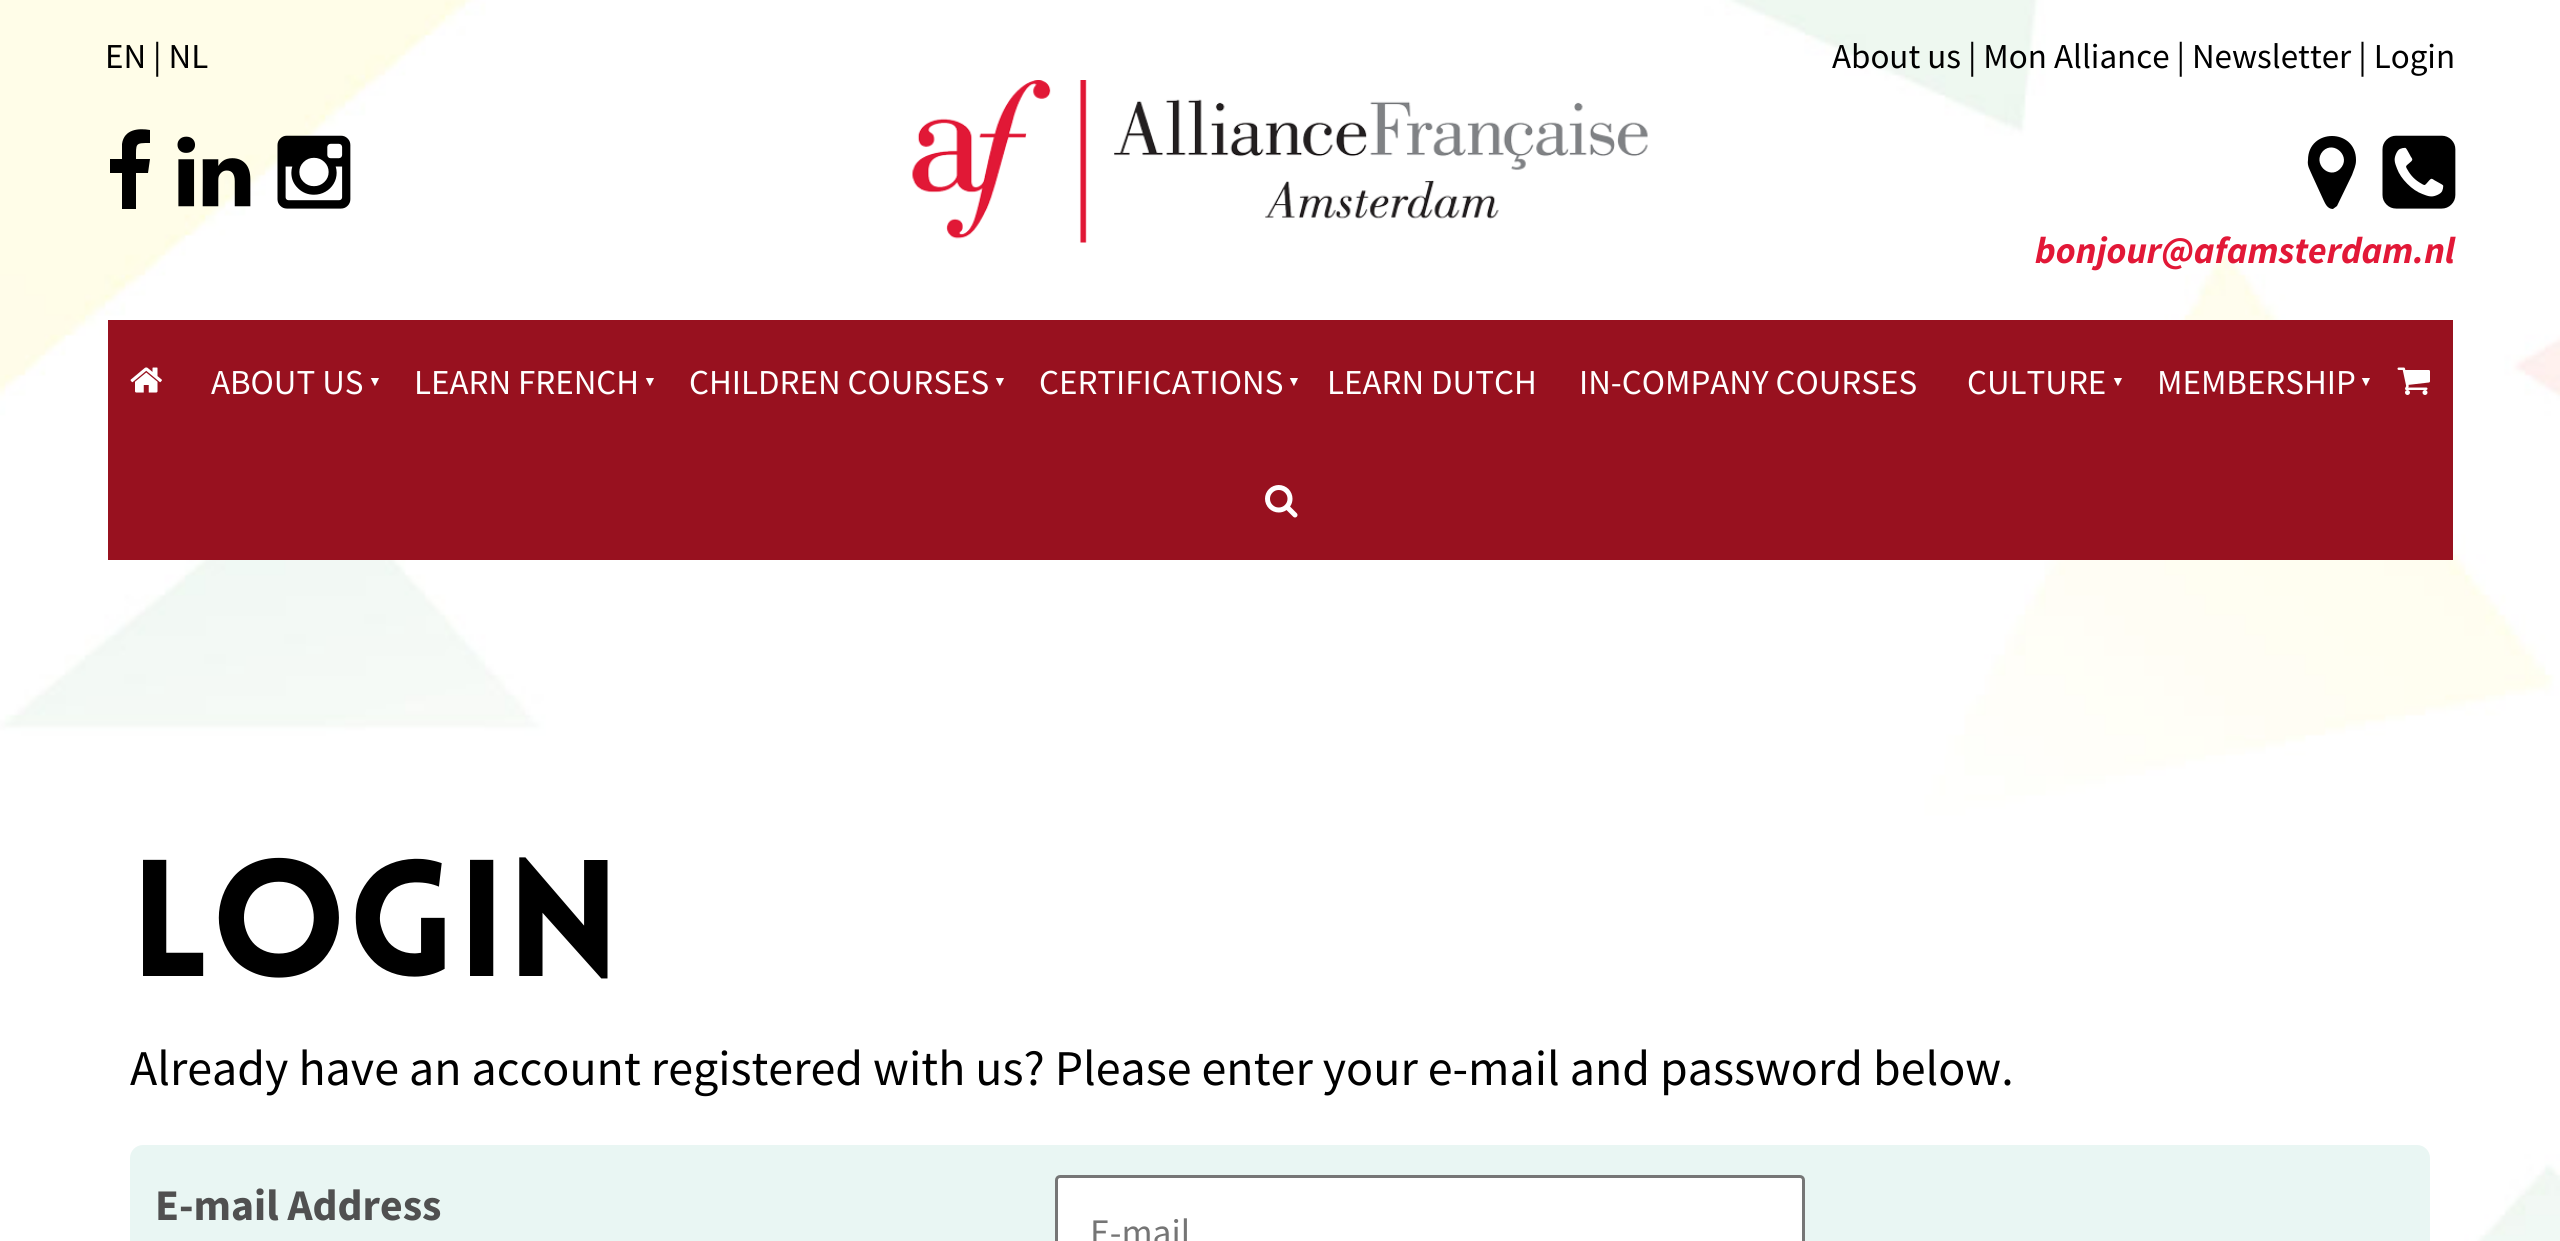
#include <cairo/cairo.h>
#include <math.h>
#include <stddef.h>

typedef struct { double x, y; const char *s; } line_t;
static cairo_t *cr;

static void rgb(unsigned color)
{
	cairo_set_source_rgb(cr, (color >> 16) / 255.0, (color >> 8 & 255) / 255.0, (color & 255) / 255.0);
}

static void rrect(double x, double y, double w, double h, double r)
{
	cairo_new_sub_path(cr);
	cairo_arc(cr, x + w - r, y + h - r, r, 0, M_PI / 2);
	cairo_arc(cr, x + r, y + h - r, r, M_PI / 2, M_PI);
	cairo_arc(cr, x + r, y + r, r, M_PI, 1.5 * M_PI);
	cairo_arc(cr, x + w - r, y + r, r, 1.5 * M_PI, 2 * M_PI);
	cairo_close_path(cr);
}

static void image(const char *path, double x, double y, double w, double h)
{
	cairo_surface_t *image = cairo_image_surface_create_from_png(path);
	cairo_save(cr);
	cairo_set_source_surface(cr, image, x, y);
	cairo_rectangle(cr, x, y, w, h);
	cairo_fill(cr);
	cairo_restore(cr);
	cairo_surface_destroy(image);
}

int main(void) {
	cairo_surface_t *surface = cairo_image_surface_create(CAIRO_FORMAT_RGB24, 2560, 1241);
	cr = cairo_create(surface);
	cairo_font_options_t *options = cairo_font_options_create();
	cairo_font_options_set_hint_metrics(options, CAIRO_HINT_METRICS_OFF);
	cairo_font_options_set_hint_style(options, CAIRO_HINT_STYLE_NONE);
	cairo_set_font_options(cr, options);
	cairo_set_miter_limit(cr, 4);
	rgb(0xffffff);
	cairo_paint(cr);
	image("img/1.png", 0, 0, 2560, 1241);
	rgb(0x000000);
	cairo_new_path(cr);
	cairo_move_to(cr, 150, 130);
	cairo_line_to(cr, 150, 143);
	cairo_curve_to(cr, 135, 143, 136, 143, 136, 159);
	cairo_line_to(cr, 150, 159);
	cairo_line_to(cr, 148, 173);
	cairo_line_to(cr, 136, 173);
	cairo_line_to(cr, 136, 209);
	cairo_line_to(cr, 122, 209);
	cairo_line_to(cr, 122, 173);
	cairo_line_to(cr, 110, 173);
	cairo_line_to(cr, 110, 159);
	cairo_line_to(cr, 122, 159);
	cairo_line_to(cr, 122, 144);
	cairo_curve_to(cr, 124, 129, 139, 128, 150, 130);
	cairo_close_path(cr);
	cairo_fill(cr);
	image("img/2.png", 177, 136, 74, 71);
	image("img/3.png", 277, 135, 74, 74);
	image("img/4.png", 912, 80, 736, 163);
	cairo_new_path(cr);
	cairo_move_to(cr, 2340, 169);
	cairo_curve_to(cr, 2352, 157, 2334, 140, 2323, 151);
	cairo_curve_to(cr, 2312, 163, 2329, 180, 2340, 169);
	cairo_close_path(cr);
	cairo_move_to(cr, 2356, 160);
	cairo_curve_to(cr, 2356, 166, 2354, 169, 2352, 175);
	cairo_line_to(cr, 2337, 206);
	cairo_curve_to(cr, 2336, 207, 2334, 208, 2333, 209);
	cairo_curve_to(cr, 2327, 209, 2325, 203, 2323, 199);
	cairo_line_to(cr, 2312, 175);
	cairo_curve_to(cr, 2310, 170, 2307, 166, 2308, 160);
	cairo_curve_to(cr, 2308, 128, 2356, 128, 2356, 160);
	cairo_close_path(cr);
	cairo_fill(cr);
	image("img/5.png", 2382, 135, 74, 74);
	rgb(0x98111f);
	cairo_rectangle(cr, 108, 320, 2345, 240);
	cairo_fill(cr);
	image("img/6.png", 130, 367, 32, 26);
	image("img/7.png", 2397, 367, 33, 28);
	image("img/8.png", 1265, 485, 33, 33);
	rgb(0xe9f6f3);
	rrect(130, 1145, 2300, 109, 13);
	cairo_fill(cr);
	rgb(0xffffff);
	rrect(1056.5, 1176.5, 747, 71, 3.5);
	cairo_fill_preserve(cr);
	rgb(0x767676);
	cairo_set_line_width(cr, 3);
	cairo_stroke(cr);
	cairo_select_font_face(cr, "Source Sans Pro", CAIRO_FONT_SLANT_NORMAL, CAIRO_FONT_WEIGHT_NORMAL);
	cairo_set_font_size(cr, 35);
	rgb(0x000000);
	cairo_move_to(cr, 105, 68);
	cairo_show_text(cr, "EN | NL");
	cairo_move_to(cr, 1832, 68);
	cairo_show_text(cr, "About us | Mon Alliance | Newsletter | Login");
	cairo_select_font_face(cr, "Source Sans Pro", CAIRO_FONT_SLANT_ITALIC, CAIRO_FONT_WEIGHT_BOLD);
	cairo_set_font_size(cr, 37.5);
	rgb(0xe21837);
	cairo_move_to(cr, 2035, 263);
	cairo_show_text(cr, "bonjour@afamsterdam.nl");
	cairo_select_font_face(cr, "Source Sans Pro", CAIRO_FONT_SLANT_NORMAL, CAIRO_FONT_WEIGHT_NORMAL);
	cairo_set_font_size(cr, 35);
	rgb(0xffffff);
	cairo_move_to(cr, 211, 394);
	cairo_show_text(cr, "ABOUT US");
	cairo_select_font_face(cr, "Liberation Sans", CAIRO_FONT_SLANT_NORMAL, CAIRO_FONT_WEIGHT_NORMAL);
	cairo_set_font_size(cr, 14);
	cairo_move_to(cr, 368, 386);
	cairo_show_text(cr, "▼");
	cairo_select_font_face(cr, "Source Sans Pro", CAIRO_FONT_SLANT_NORMAL, CAIRO_FONT_WEIGHT_NORMAL);
	cairo_set_font_size(cr, 35);
	cairo_move_to(cr, 414, 394);
	cairo_show_text(cr, "LEARN FRENCH");
	cairo_select_font_face(cr, "Liberation Sans", CAIRO_FONT_SLANT_NORMAL, CAIRO_FONT_WEIGHT_NORMAL);
	cairo_set_font_size(cr, 14);
	cairo_move_to(cr, 643, 386);
	cairo_show_text(cr, "▼");
	cairo_select_font_face(cr, "Source Sans Pro", CAIRO_FONT_SLANT_NORMAL, CAIRO_FONT_WEIGHT_NORMAL);
	cairo_set_font_size(cr, 35);
	cairo_move_to(cr, 689, 394);
	cairo_show_text(cr, "CHILDREN COURSES");
	cairo_select_font_face(cr, "Liberation Sans", CAIRO_FONT_SLANT_NORMAL, CAIRO_FONT_WEIGHT_NORMAL);
	cairo_set_font_size(cr, 14);
	cairo_move_to(cr, 993, 386);
	cairo_show_text(cr, "▼");
	cairo_select_font_face(cr, "Source Sans Pro", CAIRO_FONT_SLANT_NORMAL, CAIRO_FONT_WEIGHT_NORMAL);
	cairo_set_font_size(cr, 35);
	cairo_move_to(cr, 1039, 394);
	cairo_show_text(cr, "CERTIFICATIONS");
	cairo_select_font_face(cr, "Liberation Sans", CAIRO_FONT_SLANT_NORMAL, CAIRO_FONT_WEIGHT_NORMAL);
	cairo_set_font_size(cr, 14);
	cairo_move_to(cr, 1287, 386);
	cairo_show_text(cr, "▼");
	cairo_select_font_face(cr, "Source Sans Pro", CAIRO_FONT_SLANT_NORMAL, CAIRO_FONT_WEIGHT_NORMAL);
	cairo_set_font_size(cr, 35);
	{
		static const line_t items[] = {
			{1327, 394, "LEARN DUTCH"},
			{1579, 394, "IN-COMPANY COURSES"},
			{1967, 394, "CULTURE"},
		};
		for (size_t i = 0; i < sizeof items / sizeof *items; i++) {
			cairo_move_to(cr, items[i].x, items[i].y);
			cairo_show_text(cr, items[i].s);
		}
	}
	cairo_select_font_face(cr, "Liberation Sans", CAIRO_FONT_SLANT_NORMAL, CAIRO_FONT_WEIGHT_NORMAL);
	cairo_set_font_size(cr, 14);
	cairo_move_to(cr, 2111, 386);
	cairo_show_text(cr, "▼");
	cairo_select_font_face(cr, "Source Sans Pro", CAIRO_FONT_SLANT_NORMAL, CAIRO_FONT_WEIGHT_NORMAL);
	cairo_set_font_size(cr, 35);
	cairo_move_to(cr, 2157, 394);
	cairo_show_text(cr, "MEMBERSHIP");
	cairo_select_font_face(cr, "Liberation Sans", CAIRO_FONT_SLANT_NORMAL, CAIRO_FONT_WEIGHT_NORMAL);
	cairo_set_font_size(cr, 14);
	cairo_move_to(cr, 2359, 386);
	cairo_show_text(cr, "▼");
	cairo_select_font_face(cr, "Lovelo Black", CAIRO_FONT_SLANT_NORMAL, CAIRO_FONT_WEIGHT_NORMAL);
	cairo_set_font_size(cr, 162.5);
	rgb(0x000000);
	cairo_move_to(cr, 130, 976);
	cairo_show_text(cr, "LOGIN");
	cairo_select_font_face(cr, "Source Sans Pro", CAIRO_FONT_SLANT_NORMAL, CAIRO_FONT_WEIGHT_NORMAL);
	cairo_set_font_size(cr, 50);
	cairo_move_to(cr, 130, 1085);
	cairo_show_text(cr, "Already have an account registered with us? Please enter your e-mail and password below.");
	cairo_select_font_face(cr, "Source Sans Pro", CAIRO_FONT_SLANT_NORMAL, CAIRO_FONT_WEIGHT_BOLD);
	cairo_set_font_size(cr, 43.75);
	rgb(0x505050);
	cairo_move_to(cr, 155, 1220);
	cairo_show_text(cr, "E-mail Address");
	cairo_select_font_face(cr, "Source Sans Pro", CAIRO_FONT_SLANT_NORMAL, CAIRO_FONT_WEIGHT_NORMAL);
	cairo_set_font_size(cr, 37.5);
	rgb(0x757575);
	cairo_move_to(cr, 1090, 1245);
	cairo_show_text(cr, "E-mail");
	cairo_surface_write_to_png(surface, "page.png");
	cairo_font_options_destroy(options);
	cairo_destroy(cr);
	cairo_surface_destroy(surface);
	return 0;
}
